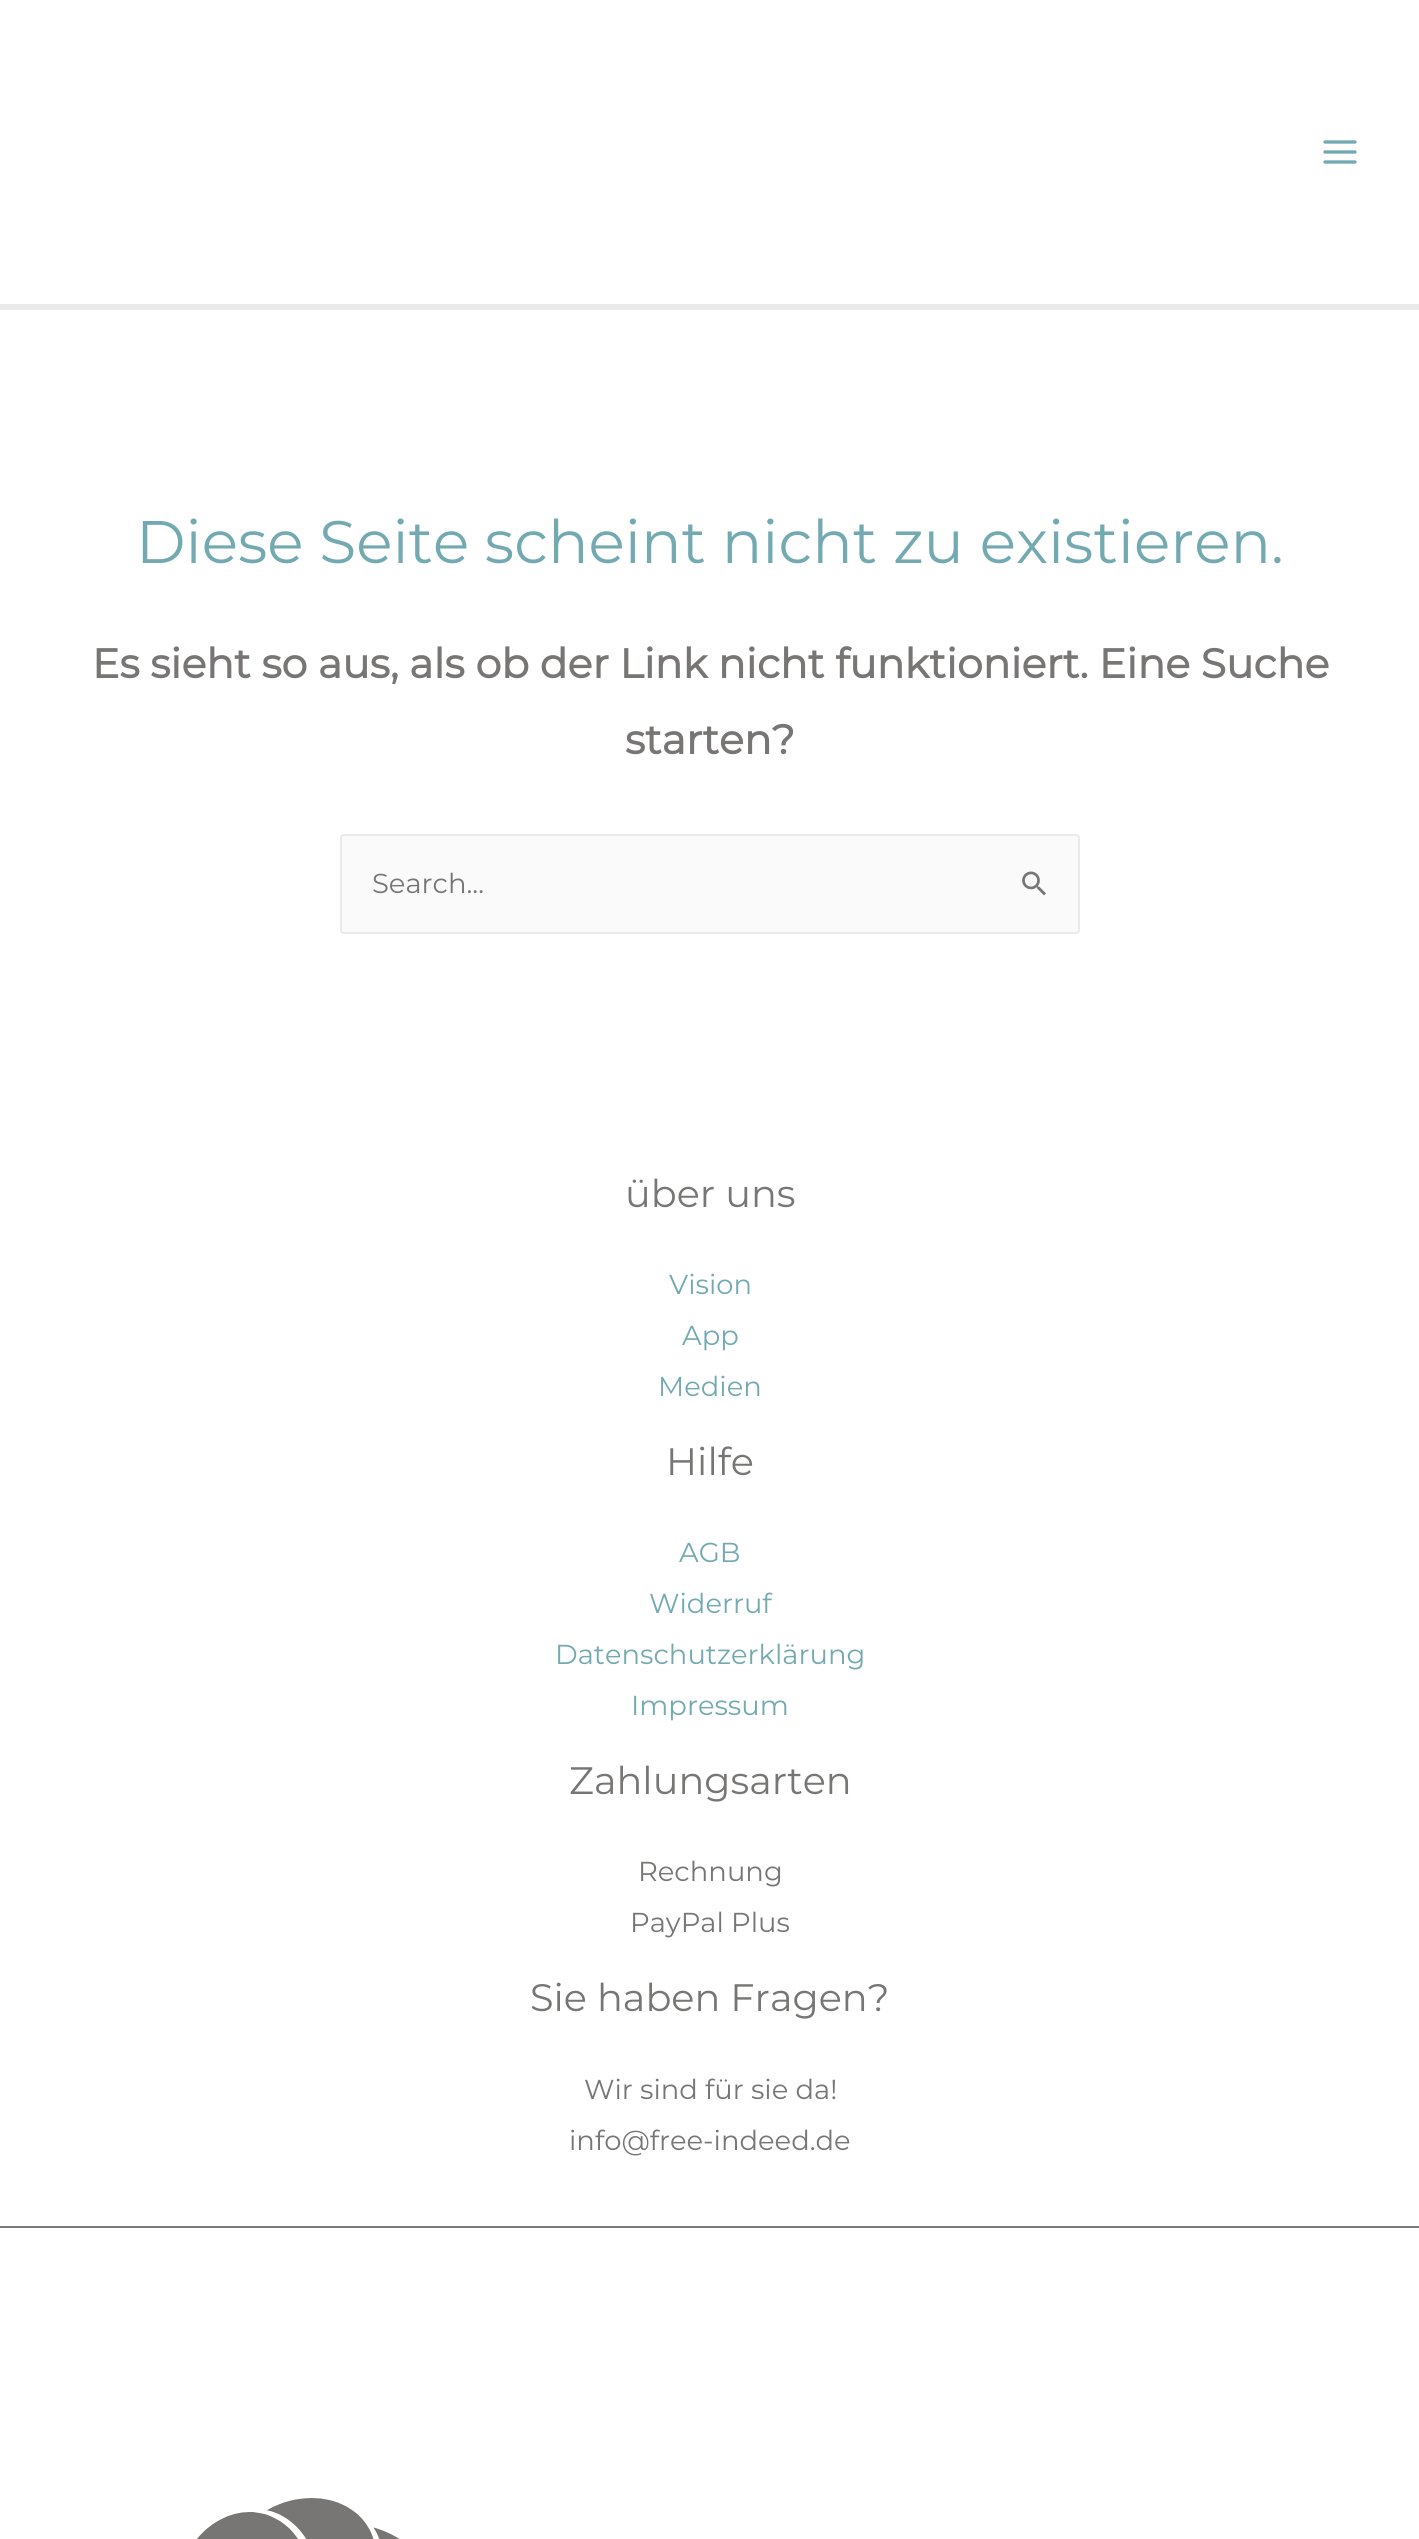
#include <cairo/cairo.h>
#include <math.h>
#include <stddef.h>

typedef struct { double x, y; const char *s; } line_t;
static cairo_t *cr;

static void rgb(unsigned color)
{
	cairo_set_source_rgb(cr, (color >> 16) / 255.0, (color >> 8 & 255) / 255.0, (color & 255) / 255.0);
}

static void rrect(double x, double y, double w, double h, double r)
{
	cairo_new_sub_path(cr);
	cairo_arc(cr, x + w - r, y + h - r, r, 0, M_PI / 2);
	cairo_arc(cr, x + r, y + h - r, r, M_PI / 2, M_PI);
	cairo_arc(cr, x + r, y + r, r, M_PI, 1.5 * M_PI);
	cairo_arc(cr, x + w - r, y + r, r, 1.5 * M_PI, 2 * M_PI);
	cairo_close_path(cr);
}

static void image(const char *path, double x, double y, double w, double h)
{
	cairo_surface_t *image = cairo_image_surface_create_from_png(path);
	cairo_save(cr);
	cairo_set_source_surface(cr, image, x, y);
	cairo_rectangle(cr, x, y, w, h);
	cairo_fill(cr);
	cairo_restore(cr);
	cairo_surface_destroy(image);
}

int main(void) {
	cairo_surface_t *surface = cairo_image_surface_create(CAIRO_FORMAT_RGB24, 1419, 2539);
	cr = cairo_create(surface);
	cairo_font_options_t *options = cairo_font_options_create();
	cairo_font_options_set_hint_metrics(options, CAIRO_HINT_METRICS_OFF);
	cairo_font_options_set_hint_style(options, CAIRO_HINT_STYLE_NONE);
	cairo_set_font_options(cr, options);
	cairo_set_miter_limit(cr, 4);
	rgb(0xffffff);
	cairo_paint(cr);
	rgb(0xeaeaea);
	cairo_rectangle(cr, 0, 304, 1419, 6);
	cairo_fill(cr);
	image("img/1.png", 1323, 140, 34, 24);
	rgb(0xfafafa);
	rrect(341, 835, 738, 98, 3);
	cairo_fill_preserve(cr);
	rgb(0xeaeaea);
	cairo_stroke(cr);
	image("img/2.png", 1022, 871, 24, 25);
	rgb(0x7a7a7a);
	cairo_rectangle(cr, 0, 2226, 1419, 2);
	cairo_fill(cr);
	image("img/3.png", 197, 2498, 203, 41);
	cairo_select_font_face(cr, "Montserrat", CAIRO_FONT_SLANT_NORMAL, CAIRO_FONT_WEIGHT_NORMAL);
	cairo_set_font_size(cr, 60);
	rgb(0x73aab2);
	cairo_move_to(cr, 136, 563);
	cairo_show_text(cr, "Diese Seite scheint nicht zu existieren.");
	cairo_select_font_face(cr, "Montserrat", CAIRO_FONT_SLANT_NORMAL, CAIRO_FONT_WEIGHT_BOLD);
	cairo_set_font_size(cr, 41.05);
	rgb(0x777675);
	cairo_move_to(cr, 92, 678);
	cairo_show_text(cr, "Es sieht so aus, als ob der Link nicht funktioniert. Eine Suche");
	cairo_move_to(cr, 625, 754);
	cairo_show_text(cr, "starten?");
	cairo_select_font_face(cr, "Montserrat", CAIRO_FONT_SLANT_NORMAL, CAIRO_FONT_WEIGHT_NORMAL);
	cairo_set_font_size(cr, 27.4);
	cairo_move_to(cr, 372, 893);
	cairo_show_text(cr, "Search...");
	cairo_set_font_size(cr, 38.25);
	cairo_move_to(cr, 625, 1207);
	cairo_show_text(cr, "über uns");
	cairo_set_font_size(cr, 27.4);
	rgb(0x73aab2);
	{
		static const line_t items[] = {
			{669, 1294, "Vision"},
			{682, 1345, "App"},
			{658, 1396, "Medien"},
		};
		for (size_t i = 0; i < sizeof items / sizeof *items; i++) {
			cairo_move_to(cr, items[i].x, items[i].y);
			cairo_show_text(cr, items[i].s);
		}
	}
	cairo_set_font_size(cr, 38.25);
	rgb(0x777675);
	cairo_move_to(cr, 666, 1475);
	cairo_show_text(cr, "Hilfe");
	cairo_set_font_size(cr, 27.4);
	rgb(0x73aab2);
	{
		static const line_t items[] = {
			{679, 1562, "AGB"},
			{649, 1613, "Widerruf"},
			{555, 1664, "Datenschutzerklärung"},
			{631, 1715, "Impressum"},
		};
		for (size_t i = 0; i < sizeof items / sizeof *items; i++) {
			cairo_move_to(cr, items[i].x, items[i].y);
			cairo_show_text(cr, items[i].s);
		}
	}
	cairo_set_font_size(cr, 38.25);
	rgb(0x777675);
	cairo_move_to(cr, 569, 1794);
	cairo_show_text(cr, "Zahlungsarten");
	cairo_set_font_size(cr, 27.4);
	cairo_move_to(cr, 638, 1881);
	cairo_show_text(cr, "Rechnung");
	cairo_move_to(cr, 630, 1932);
	cairo_show_text(cr, "PayPal Plus");
	cairo_set_font_size(cr, 38.25);
	cairo_move_to(cr, 530, 2011);
	cairo_show_text(cr, "Sie haben Fragen?");
	cairo_set_font_size(cr, 27.4);
	cairo_move_to(cr, 584, 2099);
	cairo_show_text(cr, "Wir sind für sie da!");
	cairo_move_to(cr, 569, 2150);
	cairo_show_text(cr, "info@free-indeed.de");
	cairo_surface_write_to_png(surface, "page.png");
	cairo_font_options_destroy(options);
	cairo_destroy(cr);
	cairo_surface_destroy(surface);
	return 0;
}
